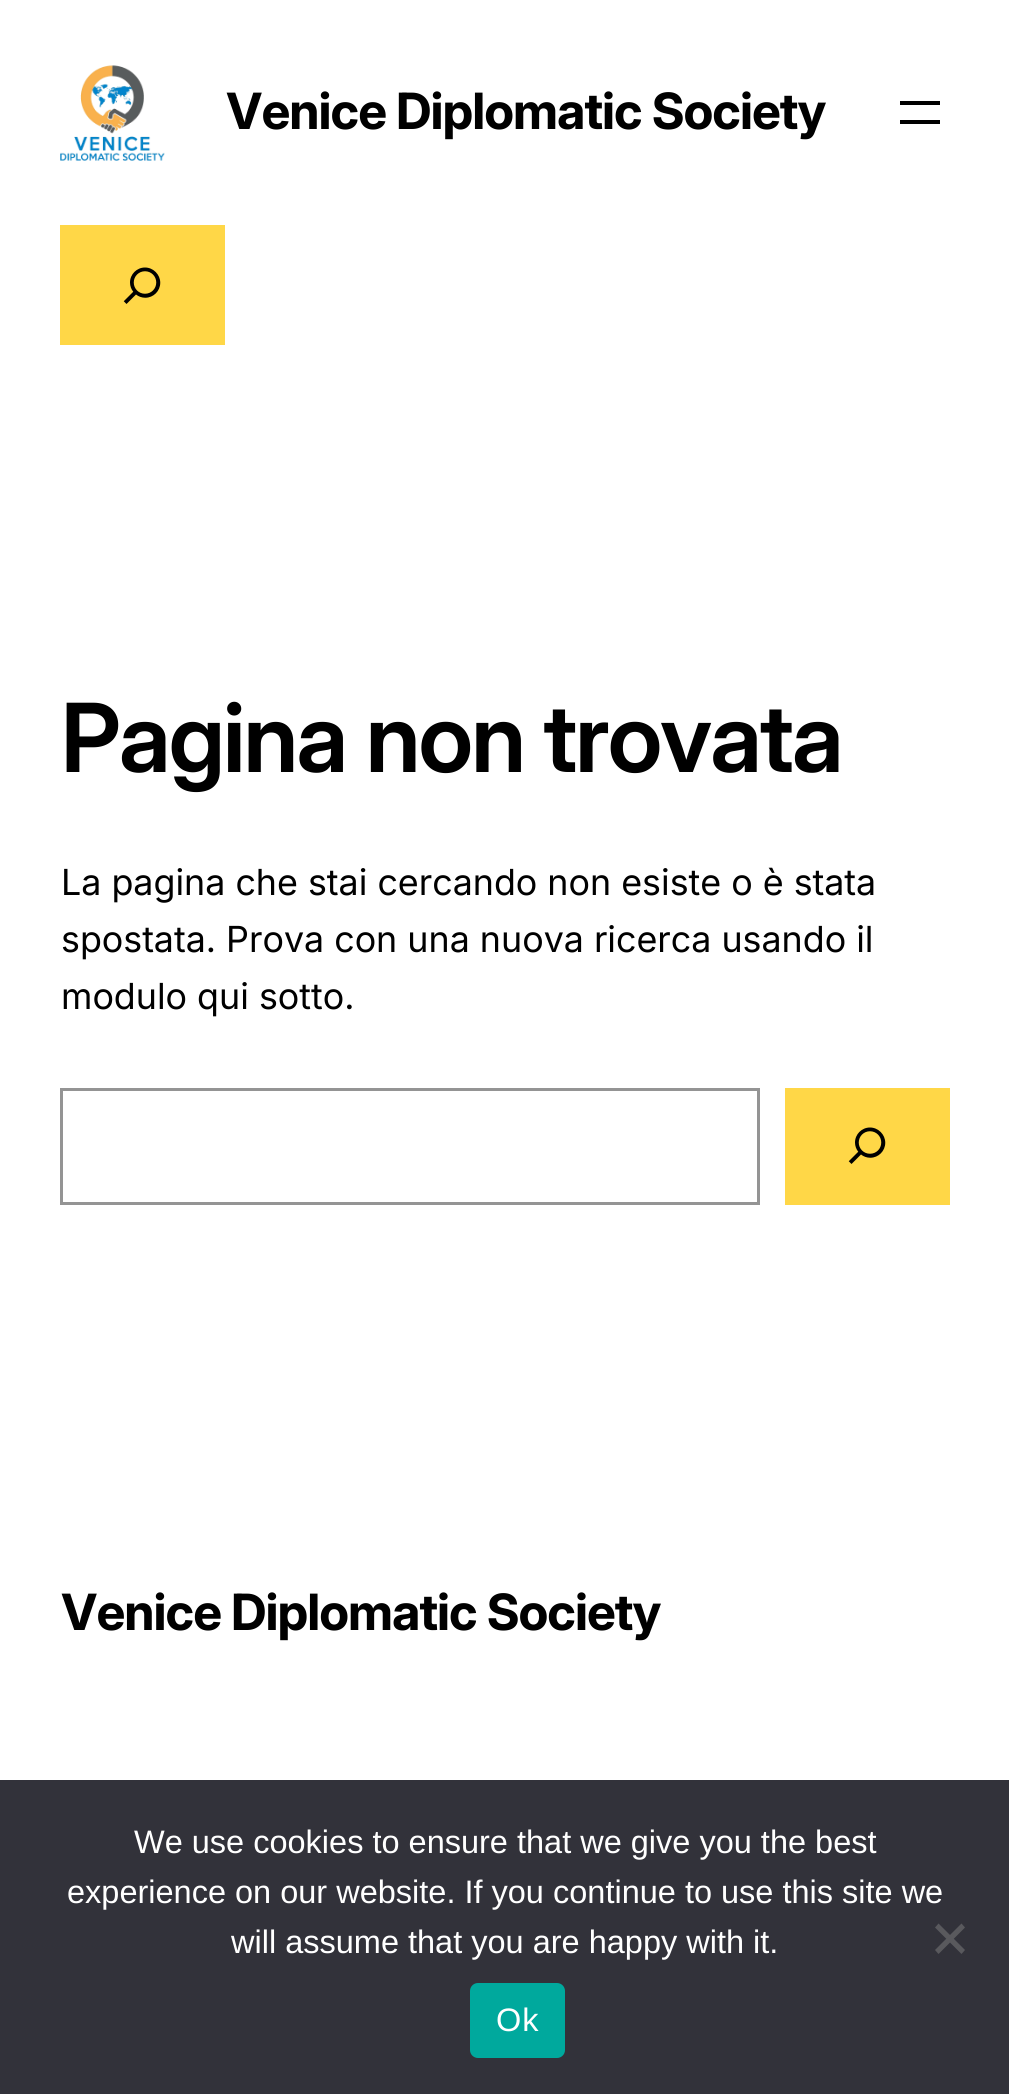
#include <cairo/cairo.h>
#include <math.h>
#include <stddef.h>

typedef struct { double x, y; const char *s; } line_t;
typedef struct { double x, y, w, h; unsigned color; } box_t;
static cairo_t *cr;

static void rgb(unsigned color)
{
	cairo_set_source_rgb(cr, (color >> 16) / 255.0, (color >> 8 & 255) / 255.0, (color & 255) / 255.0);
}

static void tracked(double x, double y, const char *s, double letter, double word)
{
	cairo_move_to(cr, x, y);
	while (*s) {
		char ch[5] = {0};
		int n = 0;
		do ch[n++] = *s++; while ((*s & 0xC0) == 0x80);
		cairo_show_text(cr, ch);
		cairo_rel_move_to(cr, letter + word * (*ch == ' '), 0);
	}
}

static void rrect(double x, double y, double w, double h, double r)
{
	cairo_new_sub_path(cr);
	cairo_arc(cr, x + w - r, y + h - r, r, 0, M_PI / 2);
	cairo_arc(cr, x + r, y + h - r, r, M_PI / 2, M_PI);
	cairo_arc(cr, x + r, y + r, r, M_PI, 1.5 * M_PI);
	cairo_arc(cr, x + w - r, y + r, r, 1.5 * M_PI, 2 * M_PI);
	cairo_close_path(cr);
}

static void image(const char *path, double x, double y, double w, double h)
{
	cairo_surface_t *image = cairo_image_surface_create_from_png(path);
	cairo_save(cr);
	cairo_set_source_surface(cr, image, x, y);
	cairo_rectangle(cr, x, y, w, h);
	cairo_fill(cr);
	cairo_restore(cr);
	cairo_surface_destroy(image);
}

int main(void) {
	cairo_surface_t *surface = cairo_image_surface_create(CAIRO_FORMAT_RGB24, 1009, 2094);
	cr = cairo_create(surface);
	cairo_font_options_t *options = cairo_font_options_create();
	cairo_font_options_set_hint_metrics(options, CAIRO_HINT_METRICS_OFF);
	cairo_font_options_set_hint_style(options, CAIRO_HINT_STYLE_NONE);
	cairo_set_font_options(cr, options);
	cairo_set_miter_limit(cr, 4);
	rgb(0xffffff);
	cairo_paint(cr);
	image("img/1.png", 60, 65, 105, 96);
	{
		static const box_t items[] = {
			{900, 101, 40, 4, 0x000000},
			{900, 120, 40, 4, 0x000000},
			{60, 225, 165, 120, 0xffd747},
		};
		for (size_t i = 0; i < sizeof items / sizeof *items; i++) {
			rgb(items[i].color);
			cairo_rectangle(cr, items[i].x, items[i].y, items[i].w, items[i].h);
			cairo_fill(cr);
		}
	}
	image("img/2.png", 123, 267, 38, 37);
	cairo_rectangle(cr, 61.5, 1089.5, 697, 114);
	rgb(0x949494);
	cairo_set_line_width(cr, 3);
	cairo_stroke(cr);
	rgb(0xffd747);
	cairo_rectangle(cr, 785, 1088, 165, 117);
	cairo_fill(cr);
	image("img/2.png", 848, 1127, 38, 37);
	rgb(0x32323a);
	cairo_rectangle(cr, 0, 1780, 1009, 314);
	cairo_fill(cr);
	rgb(0x59595d);
	cairo_new_path(cr);
	cairo_move_to(cr, 961.5, 1923.5);
	cairo_line_to(cr, 965, 1927.5);
	cairo_line_to(cr, 938.5, 1954);
	cairo_line_to(cr, 935, 1950);
	cairo_close_path(cr);
	cairo_fill(cr);
	cairo_new_path(cr);
	cairo_move_to(cr, 935, 1927.5);
	cairo_line_to(cr, 938.5, 1923.5);
	cairo_line_to(cr, 965, 1950);
	cairo_line_to(cr, 961.5, 1954);
	cairo_close_path(cr);
	cairo_fill(cr);
	rgb(0x00a99d);
	rrect(470, 1983, 95, 75, 8);
	cairo_fill(cr);
	cairo_select_font_face(cr, "Inter", CAIRO_FONT_SLANT_NORMAL, CAIRO_FONT_WEIGHT_BOLD);
	cairo_set_font_size(cr, 50);
	rgb(0x000000);
	tracked(226, 129, "Venice Diplomatic Society", -1, 0);
	cairo_select_font_face(cr, "Inter SemiBold", CAIRO_FONT_SLANT_NORMAL, CAIRO_FONT_WEIGHT_NORMAL);
	cairo_set_font_size(cr, 95.25);
	tracked(61, 772, "Pagina non trovata", -1.9, 0);
	cairo_select_font_face(cr, "Inter", CAIRO_FONT_SLANT_NORMAL, CAIRO_FONT_WEIGHT_NORMAL);
	cairo_set_font_size(cr, 35.9);
	{
		static const line_t items[] = {
			{61, 895, "La pagina che stai cercando non esiste o è stata"},
			{61, 952, "spostata. Prova con una nuova ricerca usando il"},
			{61, 1009, "modulo qui sotto."},
		};
		for (size_t i = 0; i < sizeof items / sizeof *items; i++) {
			cairo_move_to(cr, items[i].x, items[i].y);
			cairo_show_text(cr, items[i].s);
		}
	}
	cairo_select_font_face(cr, "Inter", CAIRO_FONT_SLANT_NORMAL, CAIRO_FONT_WEIGHT_BOLD);
	cairo_set_font_size(cr, 50);
	tracked(61, 1630, "Venice Diplomatic Society", -1, 0);
	cairo_select_font_face(cr, "Liberation Sans", CAIRO_FONT_SLANT_NORMAL, CAIRO_FONT_WEIGHT_NORMAL);
	cairo_set_font_size(cr, 32.5);
	rgb(0xffffff);
	{
		static const line_t items[] = {
			{134, 1853, "We use cookies to ensure that we give you the best"},
			{67, 1903, "experience on our website. If you continue to use this site we"},
			{231, 1953, "will assume that you are happy with it."},
		};
		for (size_t i = 0; i < sizeof items / sizeof *items; i++) {
			cairo_move_to(cr, items[i].x, items[i].y);
			cairo_show_text(cr, items[i].s);
		}
	}
	tracked(496, 2031, "Ok", 1, 0);
	cairo_surface_write_to_png(surface, "page.png");
	cairo_font_options_destroy(options);
	cairo_destroy(cr);
	cairo_surface_destroy(surface);
	return 0;
}
